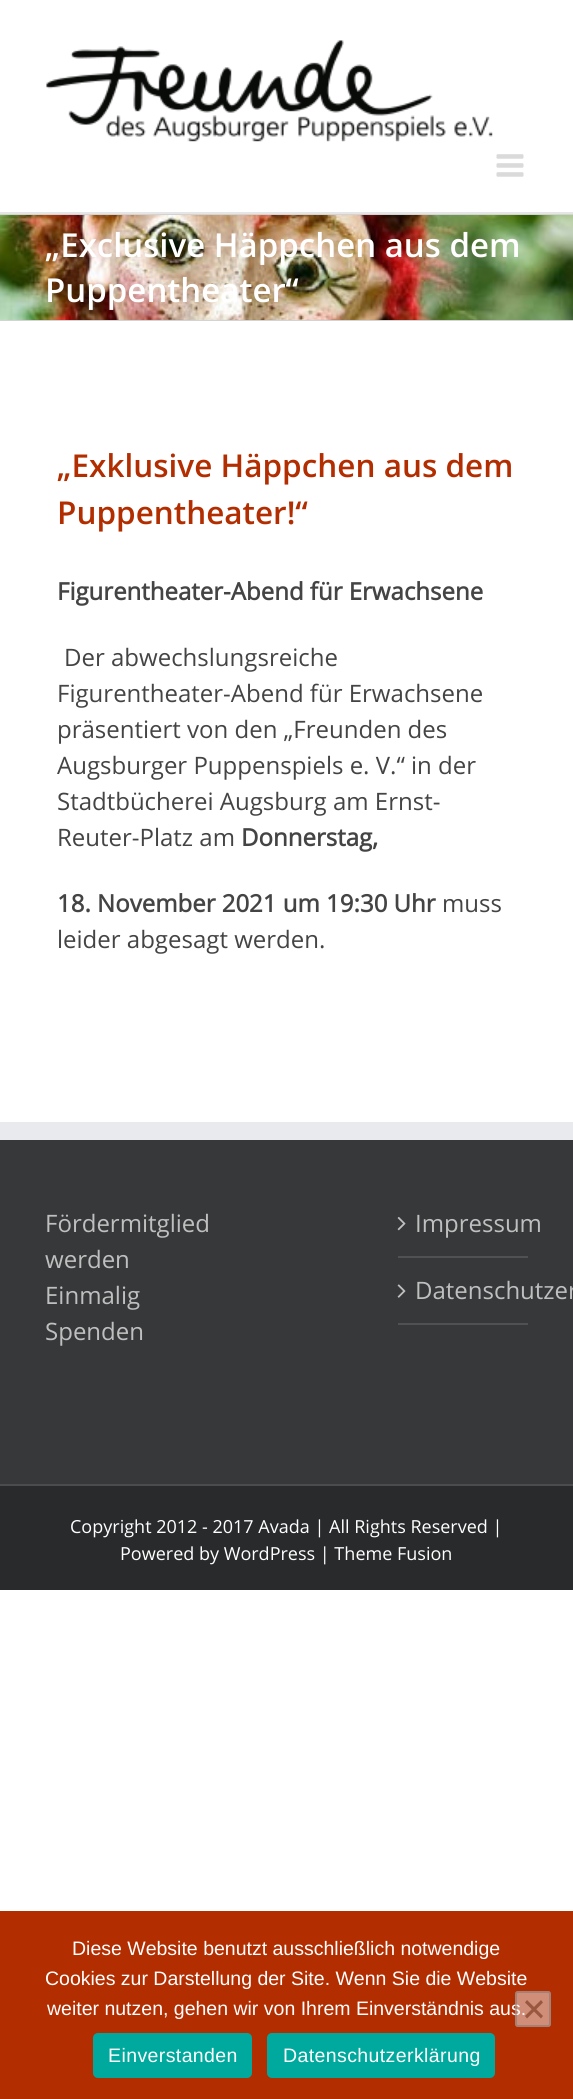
#include <cairo/cairo.h>
#include <math.h>
#include <stddef.h>

typedef struct { double x, y; const char *s; } line_t;
typedef struct { double x, y, w, h; unsigned color; } box_t;
static cairo_t *cr;

static void rgb(unsigned color)
{
	cairo_set_source_rgb(cr, (color >> 16) / 255.0, (color >> 8 & 255) / 255.0, (color & 255) / 255.0);
}

static void tracked(double x, double y, const char *s, double letter, double word)
{
	cairo_move_to(cr, x, y);
	while (*s) {
		char ch[5] = {0};
		int n = 0;
		do ch[n++] = *s++; while ((*s & 0xC0) == 0x80);
		cairo_show_text(cr, ch);
		cairo_rel_move_to(cr, letter + word * (*ch == ' '), 0);
	}
}

static void rrect(double x, double y, double w, double h, double r)
{
	cairo_new_sub_path(cr);
	cairo_arc(cr, x + w - r, y + h - r, r, 0, M_PI / 2);
	cairo_arc(cr, x + r, y + h - r, r, M_PI / 2, M_PI);
	cairo_arc(cr, x + r, y + r, r, M_PI, 1.5 * M_PI);
	cairo_arc(cr, x + w - r, y + r, r, 1.5 * M_PI, 2 * M_PI);
	cairo_close_path(cr);
}

static void image(const char *path, double x, double y, double w, double h)
{
	cairo_surface_t *image = cairo_image_surface_create_from_png(path);
	cairo_save(cr);
	cairo_set_source_surface(cr, image, x, y);
	cairo_rectangle(cr, x, y, w, h);
	cairo_fill(cr);
	cairo_restore(cr);
	cairo_surface_destroy(image);
}

int main(void) {
	cairo_surface_t *surface = cairo_image_surface_create(CAIRO_FORMAT_RGB24, 573, 2099);
	cr = cairo_create(surface);
	cairo_font_options_t *options = cairo_font_options_create();
	cairo_font_options_set_hint_metrics(options, CAIRO_HINT_METRICS_OFF);
	cairo_font_options_set_hint_style(options, CAIRO_HINT_STYLE_NONE);
	cairo_set_font_options(cr, options);
	cairo_set_miter_limit(cr, 4);
	rgb(0xffffff);
	cairo_paint(cr);
	rgb(0xe5e5e5);
	cairo_rectangle(cr, 0, 212, 573, 2);
	cairo_fill(cr);
	image("img/1.png", 46, 40, 447, 102);
	image("img/2.png", 496, 154, 28, 23);
	image("img/3.png", 0, 215, 573, 105);
	{
		static const box_t items[] = {
			{0, 214, 573, 1, 0xd2d3d4},
			{0, 320, 573, 1, 0xd2d3d4},
			{0, 1140, 573, 344, 0x363839},
			{0, 1122, 573, 18, 0xe9eaee},
			{398, 1256, 130, 2, 0x505152},
		};
		for (size_t i = 0; i < sizeof items / sizeof *items; i++) {
			rgb(items[i].color);
			cairo_rectangle(cr, items[i].x, items[i].y, items[i].w, items[i].h);
			cairo_fill(cr);
		}
	}
	image("img/4.png", 397, 1217, 9, 14);
	cairo_rectangle(cr, 398, 1323, 130, 2);
	cairo_fill(cr);
	image("img/5.png", 397, 1284, 9, 14);
	{
		static const box_t items[] = {
			{0, 1486, 573, 104, 0x282a2b},
			{0, 1484, 573, 2, 0x4b4c4d},
			{0, 1911, 573, 188, 0xb22d00},
		};
		for (size_t i = 0; i < sizeof items / sizeof *items; i++) {
			rgb(items[i].color);
			cairo_rectangle(cr, items[i].x, items[i].y, items[i].w, items[i].h);
			cairo_fill(cr);
		}
	}
	rgb(0x00a99d);
	rrect(93, 2033, 159, 45, 5);
	cairo_fill(cr);
	rrect(267, 2033, 228, 45, 5);
	cairo_fill(cr);
	cairo_select_font_face(cr, "Open Sans SemiBold", CAIRO_FONT_SLANT_NORMAL, CAIRO_FONT_WEIGHT_NORMAL);
	cairo_set_font_size(cr, 33);
	rgb(0xffffff);
	cairo_move_to(cr, 45, 257);
	cairo_show_text(cr, "„Exclusive Häppchen aus dem");
	cairo_move_to(cr, 45, 302);
	cairo_show_text(cr, "Puppentheater“");
	cairo_set_font_size(cr, 31.5);
	rgb(0xb22d00);
	cairo_move_to(cr, 57, 477);
	cairo_show_text(cr, "„Exklusive Häppchen aus dem");
	cairo_move_to(cr, 57, 524);
	cairo_show_text(cr, "Puppentheater!“");
	cairo_select_font_face(cr, "Open Sans", CAIRO_FONT_SLANT_NORMAL, CAIRO_FONT_WEIGHT_BOLD);
	cairo_set_font_size(cr, 24);
	rgb(0x444444);
	cairo_move_to(cr, 57, 600);
	cairo_show_text(cr, "Figurentheater-Abend für Erwachsene");
	cairo_select_font_face(cr, "Open Sans", CAIRO_FONT_SLANT_NORMAL, CAIRO_FONT_WEIGHT_NORMAL);
	{
		static const line_t items[] = {
			{64, 666, "Der abwechslungsreiche"},
			{57, 702, "Figurentheater-Abend für Erwachsene"},
			{57, 738, "präsentiert von den „Freunden des"},
			{57, 774, "Augsburger Puppenspiels e. V.“ in der"},
			{57, 810, "Stadtbücherei Augsburg am Ernst-"},
			{57, 846, "Reuter-Platz am"},
		};
		for (size_t i = 0; i < sizeof items / sizeof *items; i++) {
			cairo_move_to(cr, items[i].x, items[i].y);
			cairo_show_text(cr, items[i].s);
		}
	}
	cairo_select_font_face(cr, "Open Sans", CAIRO_FONT_SLANT_NORMAL, CAIRO_FONT_WEIGHT_BOLD);
	cairo_move_to(cr, 241, 846);
	cairo_show_text(cr, "Donnerstag,");
	cairo_move_to(cr, 57, 912);
	cairo_show_text(cr, "18. November 2021 um 19:30 Uhr");
	cairo_select_font_face(cr, "Open Sans", CAIRO_FONT_SLANT_NORMAL, CAIRO_FONT_WEIGHT_NORMAL);
	cairo_move_to(cr, 442, 912);
	cairo_show_text(cr, "muss");
	cairo_move_to(cr, 57, 948);
	cairo_show_text(cr, "leider abgesagt werden.");
	rgb(0xbfbfbf);
	{
		static const line_t items[] = {
			{45, 1232, "Fördermitglied"},
			{45, 1268, "werden"},
			{45, 1304, "Einmalig"},
			{45, 1340, "Spenden"},
			{415, 1232, "Impressum"},
			{415, 1299, "Datenschutzer"},
		};
		for (size_t i = 0; i < sizeof items / sizeof *items; i++) {
			cairo_move_to(cr, items[i].x, items[i].y);
			cairo_show_text(cr, items[i].s);
		}
	}
	cairo_set_font_size(cr, 18);
	rgb(0xffffff);
	cairo_move_to(cr, 70, 1533);
	cairo_show_text(cr, "Copyright 2012 - 2017 Avada | All Rights Reserved |");
	cairo_move_to(cr, 120, 1560);
	cairo_show_text(cr, "Powered by WordPress | Theme Fusion");
	cairo_select_font_face(cr, "Liberation Sans", CAIRO_FONT_SLANT_NORMAL, CAIRO_FONT_WEIGHT_NORMAL);
	cairo_set_font_size(cr, 19.5);
	{
		static const line_t items[] = {
			{72, 1955, "Diese Website benutzt ausschließlich notwendige"},
			{45, 1985, "Cookies zur Darstellung der Site. Wenn Sie die Website"},
			{47, 2015, "weiter nutzen, gehen wir von Ihrem Einverständnis aus."},
		};
		for (size_t i = 0; i < sizeof items / sizeof *items; i++) {
			cairo_move_to(cr, items[i].x, items[i].y);
			cairo_show_text(cr, items[i].s);
		}
	}
	cairo_set_source_rgba(cr, 0.937, 0.937, 0.937, 0.5);
	rrect(515, 1991, 36, 36, 3);
	cairo_fill(cr);
	rrect(516, 1992, 34, 34, 2);
	cairo_set_source_rgba(cr, 0.463, 0.463, 0.463, 0.5);
	cairo_stroke(cr);
	rgb(0x995740);
	cairo_new_path(cr);
	cairo_move_to(cr, 541, 2000);
	cairo_line_to(cr, 543, 2002.5);
	cairo_line_to(cr, 527, 2018.5);
	cairo_line_to(cr, 525, 2016);
	cairo_close_path(cr);
	cairo_fill(cr);
	cairo_new_path(cr);
	cairo_move_to(cr, 525, 2002.5);
	cairo_line_to(cr, 527, 2000);
	cairo_line_to(cr, 543, 2016);
	cairo_line_to(cr, 541, 2018.5);
	cairo_close_path(cr);
	cairo_fill(cr);
	rgb(0xffffff);
	tracked(108, 2062, "Einverstanden", 0.4, 0);
	tracked(283, 2062, "Datenschutzerklärung", 0.4, 0);
	cairo_surface_write_to_png(surface, "page.png");
	cairo_font_options_destroy(options);
	cairo_destroy(cr);
	cairo_surface_destroy(surface);
	return 0;
}
